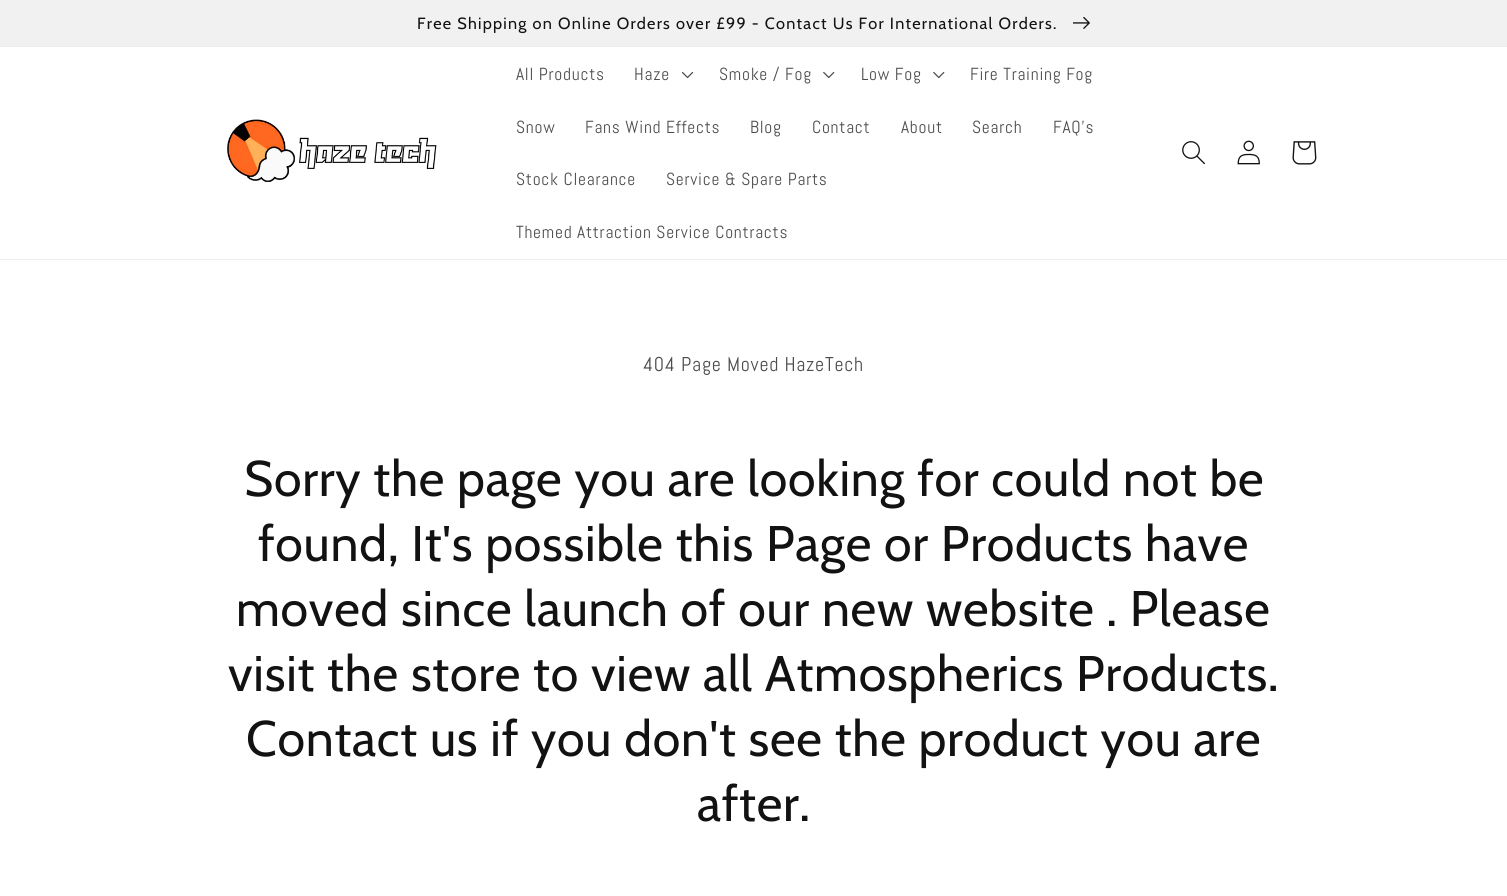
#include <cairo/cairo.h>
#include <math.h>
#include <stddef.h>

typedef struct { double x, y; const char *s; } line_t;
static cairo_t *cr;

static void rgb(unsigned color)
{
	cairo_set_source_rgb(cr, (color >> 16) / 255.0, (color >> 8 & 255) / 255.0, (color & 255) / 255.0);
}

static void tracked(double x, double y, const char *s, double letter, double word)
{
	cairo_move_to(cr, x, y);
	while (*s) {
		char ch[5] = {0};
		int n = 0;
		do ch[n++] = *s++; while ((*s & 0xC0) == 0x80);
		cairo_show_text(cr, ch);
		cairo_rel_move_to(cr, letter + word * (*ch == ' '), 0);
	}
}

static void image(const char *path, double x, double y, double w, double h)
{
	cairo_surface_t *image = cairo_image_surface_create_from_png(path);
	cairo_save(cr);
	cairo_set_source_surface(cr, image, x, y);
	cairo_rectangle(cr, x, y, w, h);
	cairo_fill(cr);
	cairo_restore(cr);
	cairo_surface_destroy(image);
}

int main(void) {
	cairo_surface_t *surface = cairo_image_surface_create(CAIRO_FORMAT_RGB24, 1507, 896);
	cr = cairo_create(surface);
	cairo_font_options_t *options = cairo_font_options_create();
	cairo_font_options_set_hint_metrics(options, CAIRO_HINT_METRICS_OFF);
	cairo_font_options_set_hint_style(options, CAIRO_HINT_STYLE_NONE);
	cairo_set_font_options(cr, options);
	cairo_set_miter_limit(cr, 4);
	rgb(0xffffff);
	cairo_paint(cr);
	rgb(0xececec);
	cairo_rectangle(cr, 0, 46, 1507, 1);
	cairo_fill(cr);
	rgb(0xf1f1f1);
	cairo_rectangle(cr, 0, 0, 1507, 46);
	cairo_fill(cr);
	image("img/1.png", 1073, 16, 17, 13);
	rgb(0xececec);
	cairo_rectangle(cr, 0, 259, 1507, 1);
	cairo_fill(cr);
	image("img/2.png", 227, 119, 210, 63);
	image("img/3.png", 681, 71, 13, 8);
	image("img/4.png", 823, 71, 12, 8);
	image("img/4.png", 933, 71, 12, 8);
	image("img/5.png", 1182, 141, 23, 24);
	image("img/6.png", 1237, 140, 23, 25);
	image("img/7.png", 1292, 141, 25, 24);
	cairo_select_font_face(cr, "Cabin", CAIRO_FONT_SLANT_NORMAL, CAIRO_FONT_WEIGHT_NORMAL);
	cairo_set_font_size(cr, 16.25);
	rgb(0x121212);
	tracked(417, 29, "Free Shipping on Online Orders over £99 - Contact Us For International Orders.", 1.25, 0);
	cairo_select_font_face(cr, "Abel", CAIRO_FONT_SLANT_NORMAL, CAIRO_FONT_WEIGHT_NORMAL);
	cairo_set_font_size(cr, 17.5);
	rgb(0x4d4d4d);
	{
		static const line_t items[] = {
			{516, 80, "All Products"},
			{634, 80, "Haze"},
			{719, 80, "Smoke / Fog"},
			{861, 80, "Low Fog"},
			{970, 80, "Fire Training Fog"},
			{516, 133, "Snow"},
			{585, 133, "Fans Wind Effects"},
			{750, 133, "Blog"},
			{812, 133, "Contact"},
			{901, 133, "About"},
			{972, 133, "Search"},
			{1053, 133, "FAQ's"},
			{516, 185, "Stock Clearance"},
			{666, 185, "Service & Spare Parts"},
			{516, 238, "Themed Attraction Service Contracts"},
		};
		for (size_t i = 0; i < sizeof items / sizeof *items; i++) {
			tracked(items[i].x, items[i].y, items[i].s, 0.75, 0);
		}
	}
	cairo_set_font_size(cr, 20);
	tracked(643, 371, "404 Page Moved HazeTech", 0.75, 0);
	cairo_select_font_face(cr, "Cabin", CAIRO_FONT_SLANT_NORMAL, CAIRO_FONT_WEIGHT_NORMAL);
	cairo_set_font_size(cr, 50);
	rgb(0x121212);
	{
		static const line_t items[] = {
			{244, 496, "Sorry the page you are looking for could not be"},
			{258, 561, "found, It's possible this Page or Products have"},
			{236, 626, "moved since launch of our new website . Please"},
			{228, 691, "visit the store to view all Atmospherics Products."},
			{246, 756, "Contact us if you don't see the product you are"},
			{697, 821, "after."},
		};
		for (size_t i = 0; i < sizeof items / sizeof *items; i++) {
			tracked(items[i].x, items[i].y, items[i].s, 0.75, 0);
		}
	}
	cairo_surface_write_to_png(surface, "page.png");
	cairo_font_options_destroy(options);
	cairo_destroy(cr);
	cairo_surface_destroy(surface);
	return 0;
}
